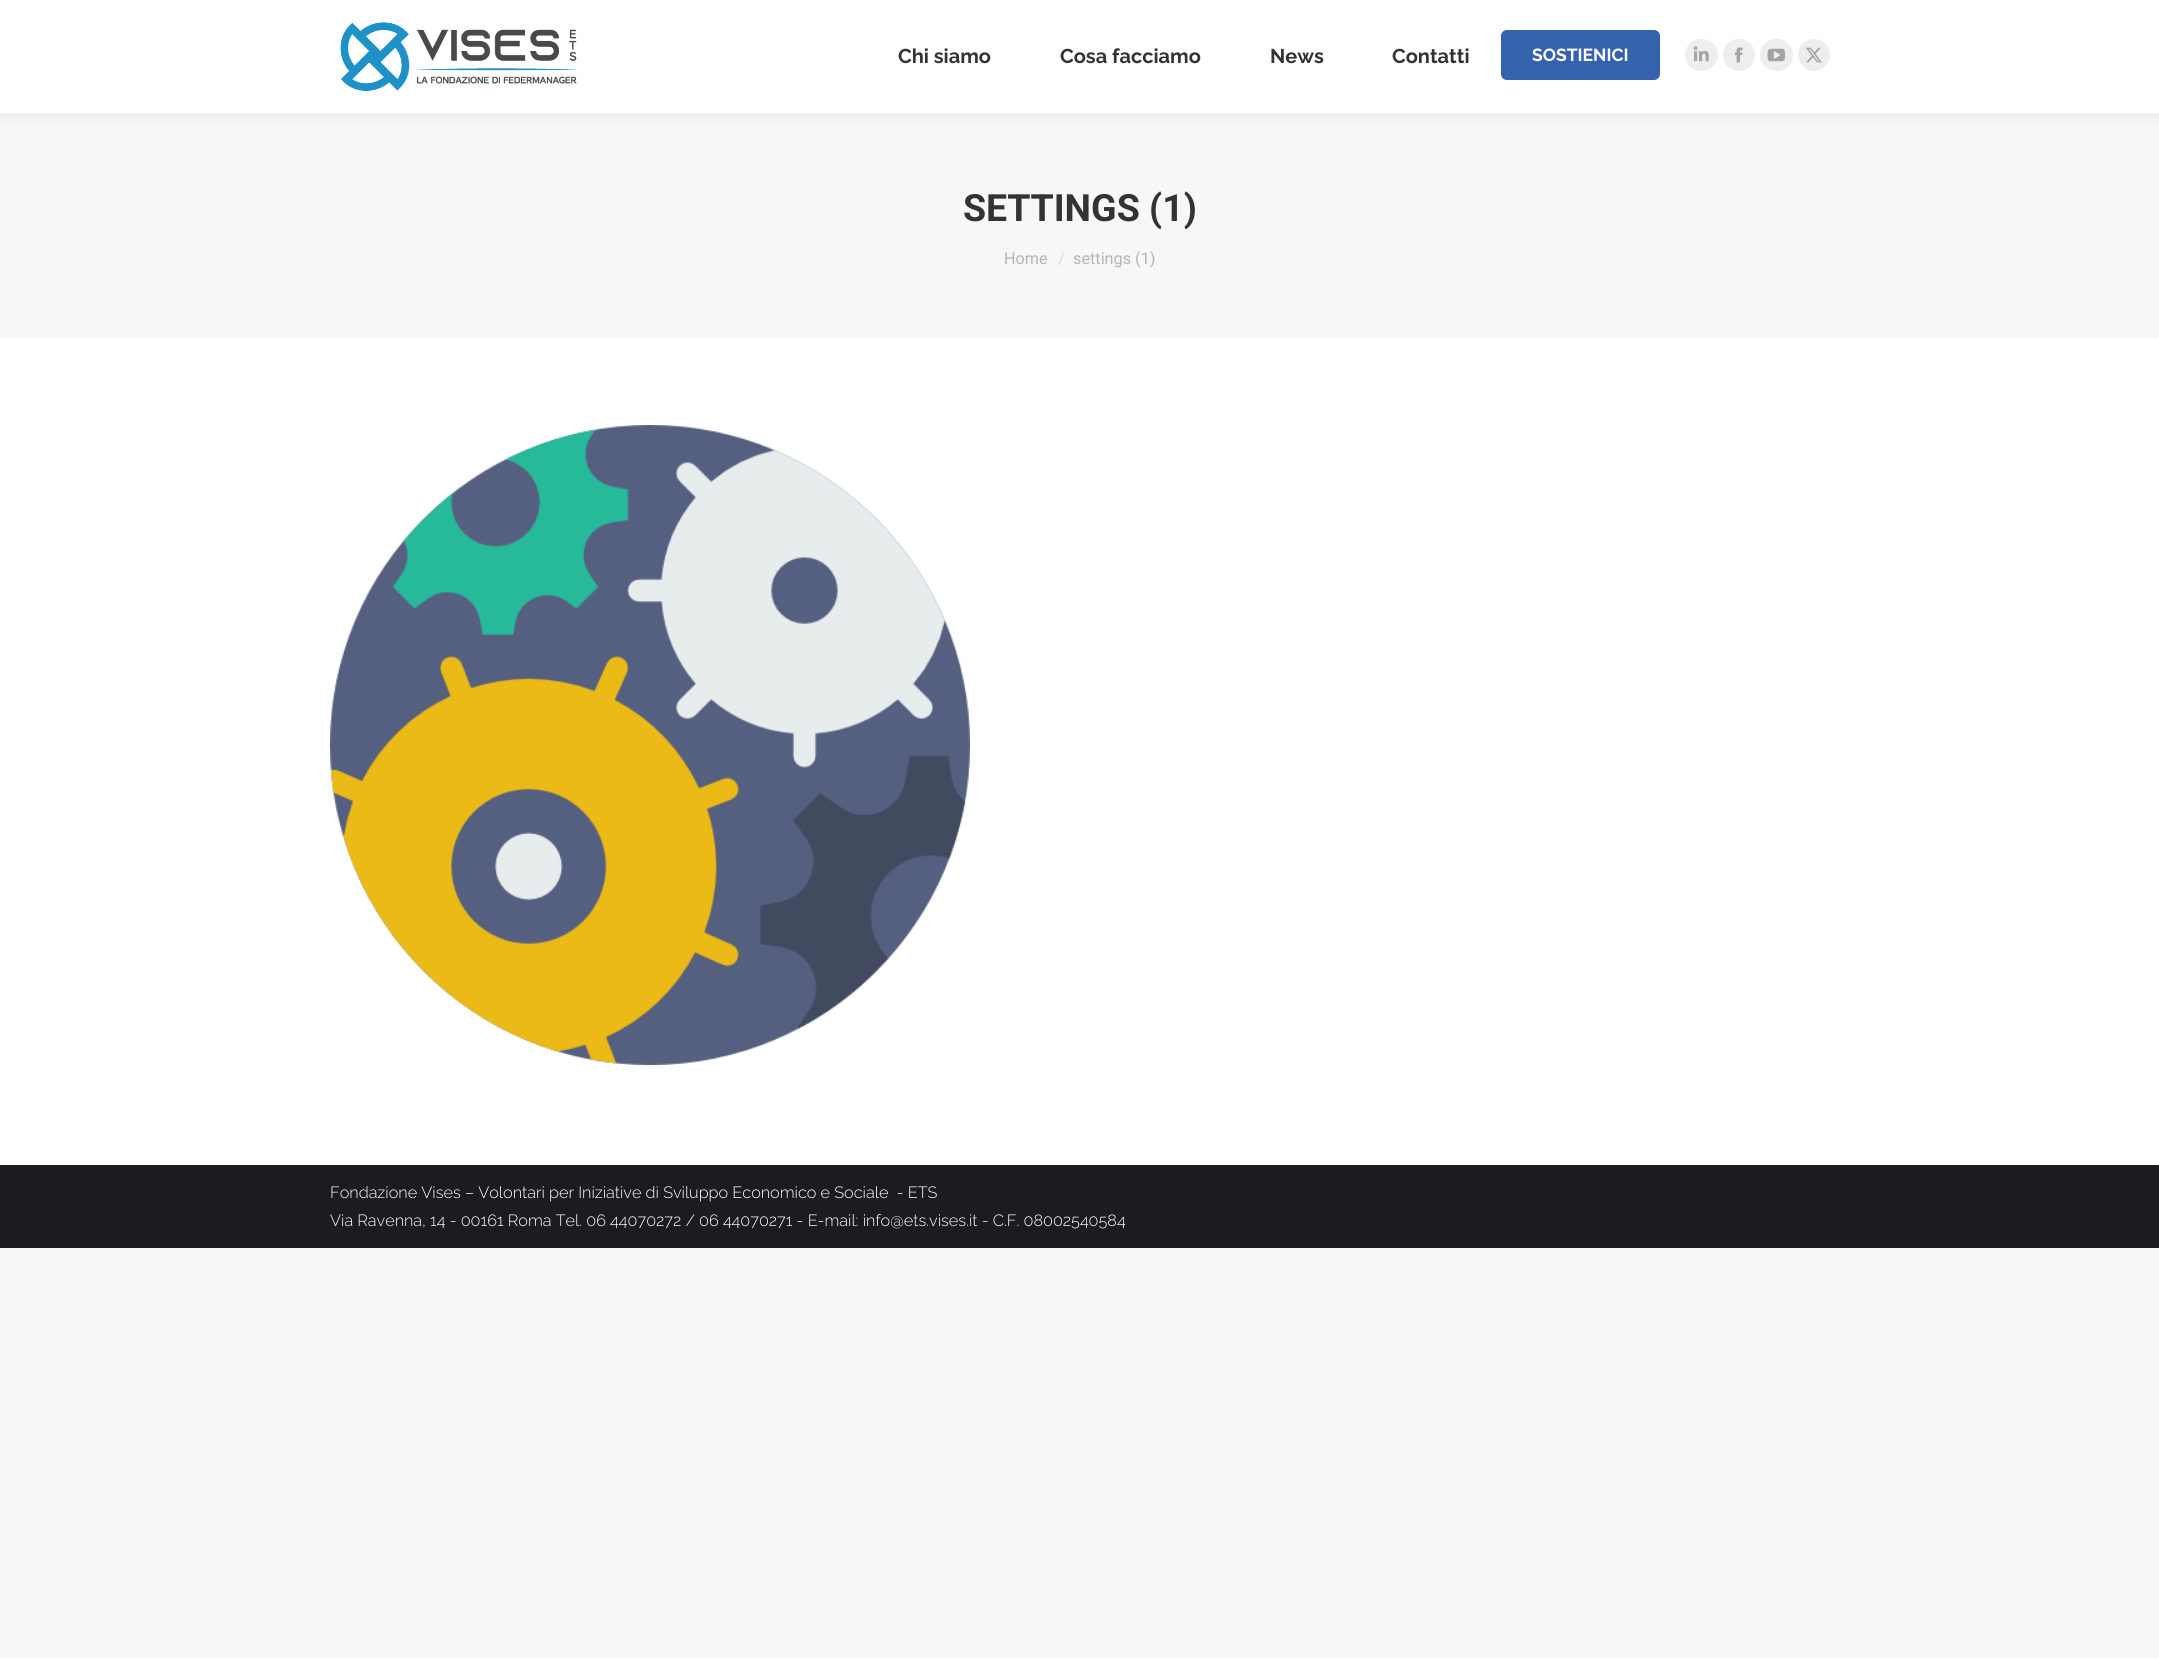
#include <cairo/cairo.h>
#include <math.h>
#include <stddef.h>

typedef struct { double x, y; const char *s; } line_t;
static cairo_t *cr;

static void rgb(unsigned color)
{
	cairo_set_source_rgb(cr, (color >> 16) / 255.0, (color >> 8 & 255) / 255.0, (color & 255) / 255.0);
}

static void rrect(double x, double y, double w, double h, double r)
{
	cairo_new_sub_path(cr);
	cairo_arc(cr, x + w - r, y + h - r, r, 0, M_PI / 2);
	cairo_arc(cr, x + r, y + h - r, r, M_PI / 2, M_PI);
	cairo_arc(cr, x + r, y + r, r, M_PI, 1.5 * M_PI);
	cairo_arc(cr, x + w - r, y + r, r, 1.5 * M_PI, 2 * M_PI);
	cairo_close_path(cr);
}

static void soft_shadow(double x, double y, double w, double h, double r, double blur, double alpha)
{
	cairo_push_group_with_content(cr, CAIRO_CONTENT_ALPHA);
	cairo_set_operator(cr, CAIRO_OPERATOR_SOURCE);
	for (int i = 15; i >= -15 && fmin(w, h) + blur * i / 3 > 0; i -= 2) {
		double e = blur * i / 6;
		cairo_set_source_rgba(cr, 0, 0, 0, alpha * erfc((i - 1) / 8.5) / 2);
		rrect(x - e, y - e, w + 2 * e, h + 2 * e, fmax(0, fmin(r + e + blur * .6, fmin(w, h) / 2 + e)));
		cairo_fill(cr);
	}
	cairo_pattern_t *soft = cairo_pop_group(cr);
	cairo_mask(cr, soft);
	cairo_pattern_destroy(soft);
}

static void image(const char *path, double x, double y, double w, double h)
{
	cairo_surface_t *image = cairo_image_surface_create_from_png(path);
	cairo_save(cr);
	cairo_set_source_surface(cr, image, x, y);
	cairo_rectangle(cr, x, y, w, h);
	cairo_fill(cr);
	cairo_restore(cr);
	cairo_surface_destroy(image);
}

int main(void) {
	cairo_surface_t *surface = cairo_image_surface_create(CAIRO_FORMAT_RGB24, 2159, 1658);
	cr = cairo_create(surface);
	cairo_font_options_t *options = cairo_font_options_create();
	cairo_font_options_set_hint_metrics(options, CAIRO_HINT_METRICS_OFF);
	cairo_font_options_set_hint_style(options, CAIRO_HINT_STYLE_NONE);
	cairo_set_font_options(cr, options);
	cairo_set_miter_limit(cr, 4);
	rgb(0xf7f7f7);
	cairo_paint(cr);
	rgb(0xffffff);
	cairo_rectangle(cr, 0, 338, 2159, 827);
	cairo_fill(cr);
	rgb(0x000000);
	soft_shadow(-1, -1, 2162, 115, 0, 9.5, 0.07);
	rgb(0xffffff);
	cairo_rectangle(cr, 0, 0, 2159, 113);
	cairo_fill(cr);
	image("img/1.png", 340, 22, 237, 69);
	rgb(0x3562ae);
	rrect(1501, 30, 159, 50, 6);
	cairo_fill(cr);
	rgb(0xeeeeef);
	rrect(1685, 39, 33, 32, 16);
	cairo_fill(cr);
	image("img/2.png", 1693, 46, 16, 16);
	cairo_arc(cr, 1739, 55, 16, 0, 2 * M_PI);
	cairo_fill(cr);
	image("img/3.png", 1735, 47, 8, 16);
	rrect(1760, 39, 33, 32, 16);
	cairo_fill(cr);
	image("img/4.png", 1767, 48, 18, 14);
	cairo_arc(cr, 1814, 55, 16, 0, 2 * M_PI);
	cairo_fill(cr);
	image("img/5.png", 1805, 47, 17, 16);
	image("img/6.png", 330, 425, 640, 640);
	rgb(0x1a1c20);
	cairo_rectangle(cr, 0, 1165, 2159, 83);
	cairo_fill(cr);
	cairo_select_font_face(cr, "Raleway", CAIRO_FONT_SLANT_NORMAL, CAIRO_FONT_WEIGHT_BOLD);
	cairo_set_font_size(cr, 20);
	rgb(0x333333);
	{
		static const line_t items[] = {
			{898, 63, "Chi siamo"},
			{1060, 63, "Cosa facciamo"},
			{1270, 63, "News"},
			{1392, 63, "Contatti"},
		};
		for (size_t i = 0; i < sizeof items / sizeof *items; i++) {
			cairo_move_to(cr, items[i].x, items[i].y);
			cairo_show_text(cr, items[i].s);
		}
	}
	cairo_set_font_size(cr, 17.5);
	rgb(0xffffff);
	cairo_move_to(cr, 1532, 61);
	cairo_show_text(cr, "SOSTIENICI");
	cairo_select_font_face(cr, "Roboto", CAIRO_FONT_SLANT_NORMAL, CAIRO_FONT_WEIGHT_BOLD);
	cairo_set_font_size(cr, 37.5);
	rgb(0x333333);
	cairo_move_to(cr, 963, 221);
	cairo_show_text(cr, "SETTINGS (1)");
	cairo_select_font_face(cr, "Roboto", CAIRO_FONT_SLANT_NORMAL, CAIRO_FONT_WEIGHT_NORMAL);
	cairo_set_font_size(cr, 16.25);
	rgb(0xb4b5bb);
	cairo_move_to(cr, 1004, 264);
	cairo_show_text(cr, "Home");
	rgb(0xd6d6d9);
	cairo_move_to(cr, 1058, 264);
	cairo_show_text(cr, "/");
	rgb(0xb4b5bb);
	cairo_move_to(cr, 1073, 264);
	cairo_show_text(cr, "settings (1)");
	cairo_select_font_face(cr, "Raleway Light", CAIRO_FONT_SLANT_NORMAL, CAIRO_FONT_WEIGHT_NORMAL);
	rgb(0xffffff);
	cairo_move_to(cr, 330, 1198);
	cairo_show_text(cr, "Fondazione Vises – Volontari per Iniziative di Sviluppo Economico e Sociale  - ETS");
	cairo_move_to(cr, 330, 1226);
	cairo_show_text(cr, "Via Ravenna, 14 - 00161 Roma Tel. 06 44070272 / 06 44070271 - E-mail: info@ets.vises.it - C.F. 08002540584");
	cairo_surface_write_to_png(surface, "page.png");
	cairo_font_options_destroy(options);
	cairo_destroy(cr);
	cairo_surface_destroy(surface);
	return 0;
}
